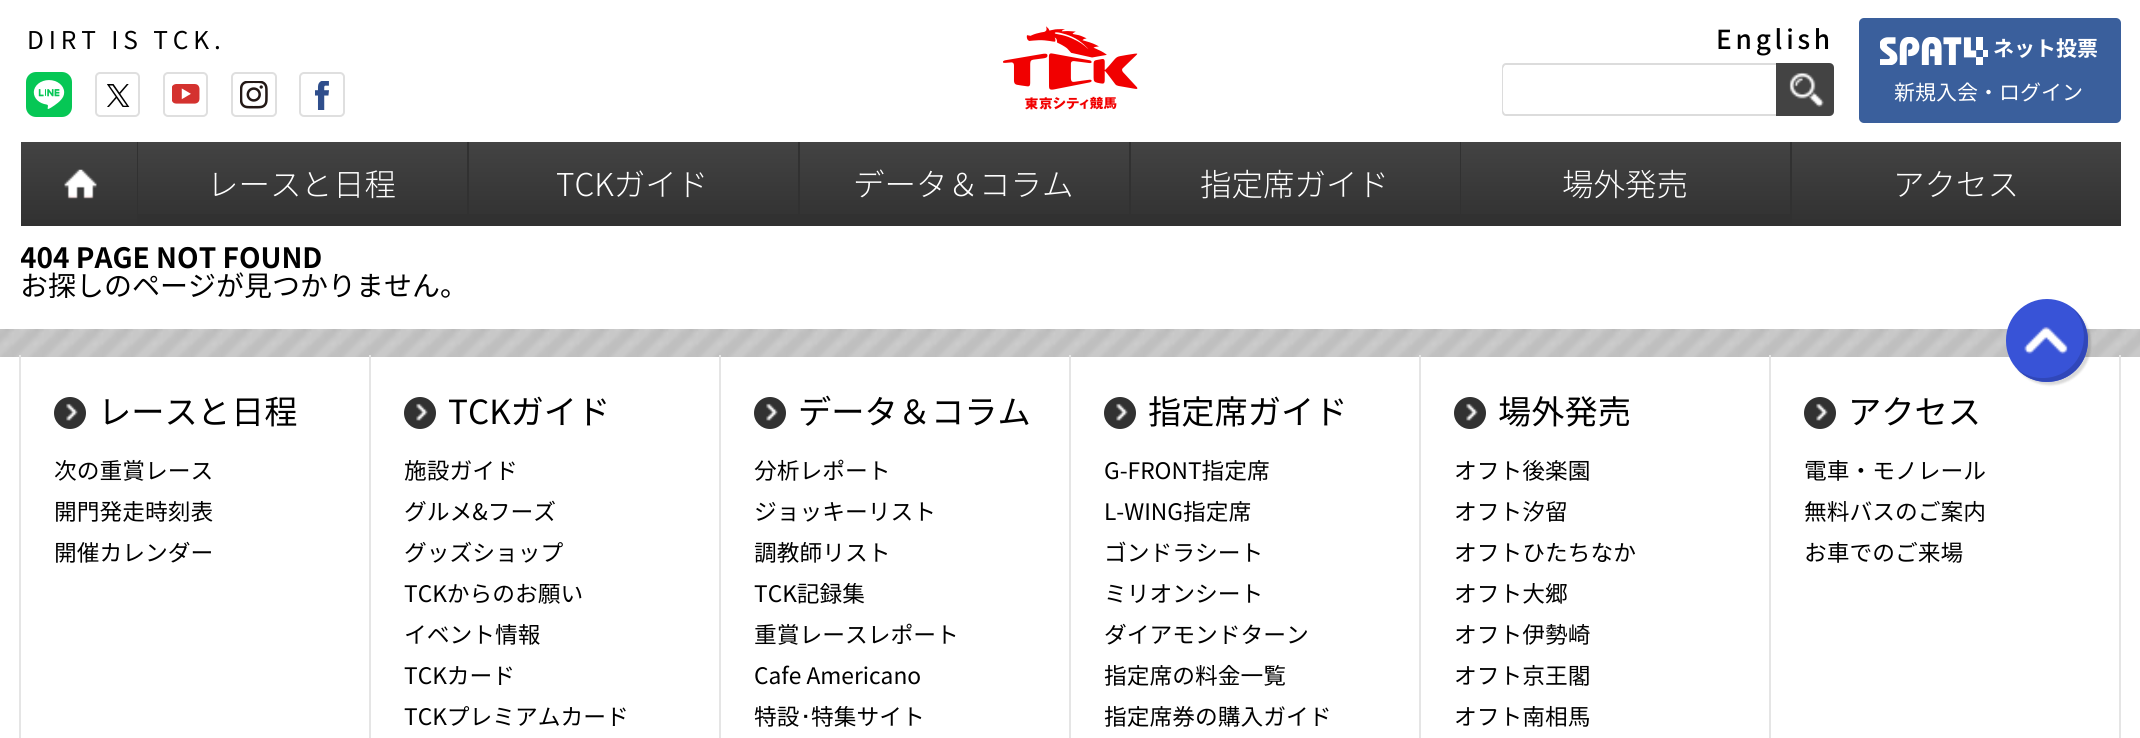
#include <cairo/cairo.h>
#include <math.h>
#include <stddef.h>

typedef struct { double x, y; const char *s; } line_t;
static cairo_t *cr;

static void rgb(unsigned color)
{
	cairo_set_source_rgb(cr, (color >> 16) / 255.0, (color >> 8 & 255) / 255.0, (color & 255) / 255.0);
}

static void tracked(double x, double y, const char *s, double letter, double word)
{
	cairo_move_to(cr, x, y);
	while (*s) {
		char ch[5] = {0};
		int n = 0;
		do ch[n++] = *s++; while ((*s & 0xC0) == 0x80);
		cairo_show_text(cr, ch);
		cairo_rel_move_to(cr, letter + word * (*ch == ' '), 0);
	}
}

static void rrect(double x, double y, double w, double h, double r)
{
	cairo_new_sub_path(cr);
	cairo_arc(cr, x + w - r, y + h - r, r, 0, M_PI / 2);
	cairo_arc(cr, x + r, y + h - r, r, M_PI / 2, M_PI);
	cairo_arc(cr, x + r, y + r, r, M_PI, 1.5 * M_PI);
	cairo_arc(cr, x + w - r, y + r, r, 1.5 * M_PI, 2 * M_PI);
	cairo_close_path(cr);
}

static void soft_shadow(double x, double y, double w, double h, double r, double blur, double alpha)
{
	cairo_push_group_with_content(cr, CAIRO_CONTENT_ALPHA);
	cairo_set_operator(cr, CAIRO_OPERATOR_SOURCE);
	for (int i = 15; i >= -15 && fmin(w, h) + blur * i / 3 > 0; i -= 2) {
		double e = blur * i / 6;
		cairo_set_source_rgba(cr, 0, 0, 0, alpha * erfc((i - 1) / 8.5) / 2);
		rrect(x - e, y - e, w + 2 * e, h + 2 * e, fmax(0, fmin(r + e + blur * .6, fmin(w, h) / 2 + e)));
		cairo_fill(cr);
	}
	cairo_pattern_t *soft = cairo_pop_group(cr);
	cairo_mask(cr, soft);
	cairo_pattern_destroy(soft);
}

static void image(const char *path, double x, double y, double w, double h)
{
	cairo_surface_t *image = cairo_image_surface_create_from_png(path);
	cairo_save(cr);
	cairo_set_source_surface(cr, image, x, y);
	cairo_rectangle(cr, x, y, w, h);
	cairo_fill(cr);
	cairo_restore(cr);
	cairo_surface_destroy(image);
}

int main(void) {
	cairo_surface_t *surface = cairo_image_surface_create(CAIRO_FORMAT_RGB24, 2140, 738);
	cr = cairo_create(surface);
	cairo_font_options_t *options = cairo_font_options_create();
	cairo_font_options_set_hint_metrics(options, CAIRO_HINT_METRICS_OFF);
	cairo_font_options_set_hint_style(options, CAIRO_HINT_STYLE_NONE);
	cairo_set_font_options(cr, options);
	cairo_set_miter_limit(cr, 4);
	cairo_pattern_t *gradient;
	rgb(0xffffff);
	cairo_paint(cr);
	image("img/1.png", 1003, 26, 135, 84);
	image("img/2.png", 26, 72, 46, 45);
	image("img/3.png", 107, 84, 23, 23);
	rrect(96, 73, 43, 43, 4);
	rgb(0xdfdfdf);
	cairo_stroke(cr);
	image("img/4.png", 172, 84, 28, 20);
	rrect(164, 73, 43, 43, 4);
	cairo_stroke(cr);
	image("img/5.png", 240, 81, 28, 28);
	rrect(232, 73, 44, 43, 4);
	cairo_stroke(cr);
	image("img/6.png", 315, 81, 14, 29);
	rrect(300, 73, 44, 43, 4);
	cairo_stroke(cr);
	rrect(1503, 64, 330, 51, 3);
	rgb(0xdcdcdc);
	cairo_stroke(cr);
	rgb(0xffffff);
	cairo_new_path(cr);
	cairo_move_to(cr, 1507, 65);
	cairo_line_to(cr, 1776, 65);
	cairo_line_to(cr, 1776, 114);
	cairo_line_to(cr, 1507, 114);
	cairo_curve_to(cr, 1505, 114, 1503, 112, 1503, 110);
	cairo_line_to(cr, 1503, 69);
	cairo_curve_to(cr, 1503, 67, 1505, 65, 1507, 65);
	cairo_close_path(cr);
	cairo_fill(cr);
	rgb(0x434343);
	cairo_new_path(cr);
	cairo_move_to(cr, 1776, 63);
	cairo_line_to(cr, 1829, 63);
	cairo_curve_to(cr, 1832, 63, 1834, 65, 1834, 68);
	cairo_line_to(cr, 1834, 111);
	cairo_curve_to(cr, 1834, 114, 1832, 116, 1829, 116);
	cairo_line_to(cr, 1776, 116);
	cairo_close_path(cr);
	cairo_fill(cr);
	image("img/7.png", 1789, 72, 35, 35);
	rgb(0x3a5f9c);
	rrect(1859, 18, 262, 105, 5);
	cairo_fill(cr);
	image("img/8.png", 1880, 37, 108, 28);
	rgb(0x313131);
	cairo_rectangle(cr, 137, 142, 1655, 84);
	cairo_fill(cr);
	gradient = cairo_pattern_create_linear(79, 142, 79, 226);
	cairo_pattern_add_color_stop_rgba(gradient, 0, 0.263, 0.263, 0.263, 1);
	cairo_pattern_add_color_stop_rgba(gradient, 1, 0.192, 0.192, 0.192, 1);
	cairo_set_source(cr, gradient);
	cairo_pattern_destroy(gradient);
	cairo_rectangle(cr, 21, 142, 116, 84);
	cairo_fill(cr);
	image("img/9.png", 64, 169, 33, 30);
	gradient = cairo_pattern_create_linear(303, 142, 303, 226);
	cairo_pattern_add_color_stop_rgba(gradient, 0, 0.263, 0.263, 0.263, 1);
	cairo_pattern_add_color_stop_rgba(gradient, 1, 0.192, 0.192, 0.192, 1);
	cairo_set_source(cr, gradient);
	cairo_pattern_destroy(gradient);
	cairo_rectangle(cr, 138, 142, 329, 72);
	cairo_fill(cr);
	gradient = cairo_pattern_create_linear(634, 142, 634, 226);
	cairo_pattern_add_color_stop_rgba(gradient, 0, 0.263, 0.263, 0.263, 1);
	cairo_pattern_add_color_stop_rgba(gradient, 1, 0.192, 0.192, 0.192, 1);
	cairo_set_source(cr, gradient);
	cairo_pattern_destroy(gradient);
	cairo_rectangle(cr, 469, 142, 329, 72);
	cairo_fill(cr);
	gradient = cairo_pattern_create_linear(964, 142, 964, 226);
	cairo_pattern_add_color_stop_rgba(gradient, 0, 0.263, 0.263, 0.263, 1);
	cairo_pattern_add_color_stop_rgba(gradient, 1, 0.192, 0.192, 0.192, 1);
	cairo_set_source(cr, gradient);
	cairo_pattern_destroy(gradient);
	cairo_rectangle(cr, 800, 142, 329, 72);
	cairo_fill(cr);
	gradient = cairo_pattern_create_linear(1295, 142, 1295, 226);
	cairo_pattern_add_color_stop_rgba(gradient, 0, 0.263, 0.263, 0.263, 1);
	cairo_pattern_add_color_stop_rgba(gradient, 1, 0.192, 0.192, 0.192, 1);
	cairo_set_source(cr, gradient);
	cairo_pattern_destroy(gradient);
	cairo_rectangle(cr, 1131, 142, 329, 72);
	cairo_fill(cr);
	gradient = cairo_pattern_create_linear(1626, 142, 1626, 226);
	cairo_pattern_add_color_stop_rgba(gradient, 0, 0.263, 0.263, 0.263, 1);
	cairo_pattern_add_color_stop_rgba(gradient, 1, 0.192, 0.192, 0.192, 1);
	cairo_set_source(cr, gradient);
	cairo_pattern_destroy(gradient);
	cairo_rectangle(cr, 1461, 142, 329, 72);
	cairo_fill(cr);
	gradient = cairo_pattern_create_linear(1957, 142, 1957, 226);
	cairo_pattern_add_color_stop_rgba(gradient, 0, 0.263, 0.263, 0.263, 1);
	cairo_pattern_add_color_stop_rgba(gradient, 1, 0.192, 0.192, 0.192, 1);
	cairo_set_source(cr, gradient);
	cairo_pattern_destroy(gradient);
	cairo_rectangle(cr, 1792, 142, 329, 84);
	cairo_fill(cr);
	image("img/10.png", 0, 329, 2140, 28);
	rgb(0x000000);
	soft_shadow(2009, 303, 82, 82, 41, 1, 0.15);
	rgb(0x3853d7);
	rrect(2006, 299, 82, 83, 41);
	cairo_fill(cr);
	image("img/11.png", 2024, 326, 44, 28);
	rgb(0x3047b9);
	cairo_new_path(cr);
	cairo_move_to(cr, 2017, 369);
	cairo_curve_to(cr, 2032, 386, 2060, 386, 2076, 370);
	cairo_curve_to(cr, 2094, 352, 2091, 321, 2071, 307);
	cairo_curve_to(cr, 2088, 322, 2088, 350, 2072, 366);
	cairo_curve_to(cr, 2057, 381, 2033, 382, 2017, 369);
	cairo_close_path(cr);
	cairo_fill(cr);
	rgb(0xe5e5e5);
	cairo_rectangle(cr, 2119, 355, 2, 383);
	cairo_fill(cr);
	cairo_rectangle(cr, 19, 355, 2, 383);
	cairo_fill(cr);
	rgb(0x313131);
	cairo_arc(cr, 70, 413, 16, 0, 2 * M_PI);
	cairo_fill(cr);
	image("img/12.png", 66, 403, 12, 18);
	rgb(0xe5e5e5);
	cairo_rectangle(cr, 369, 355, 2, 383);
	cairo_fill(cr);
	rgb(0x313131);
	cairo_arc(cr, 420, 413, 16, 0, 2 * M_PI);
	cairo_fill(cr);
	image("img/12.png", 416, 403, 12, 18);
	rgb(0xe5e5e5);
	cairo_rectangle(cr, 719, 355, 2, 383);
	cairo_fill(cr);
	rgb(0x313131);
	cairo_arc(cr, 770, 413, 16, 0, 2 * M_PI);
	cairo_fill(cr);
	image("img/12.png", 766, 403, 12, 18);
	rgb(0xe5e5e5);
	cairo_rectangle(cr, 1069, 355, 2, 383);
	cairo_fill(cr);
	rgb(0x313131);
	cairo_arc(cr, 1120, 413, 16, 0, 2 * M_PI);
	cairo_fill(cr);
	image("img/12.png", 1116, 403, 12, 18);
	rgb(0xe5e5e5);
	cairo_rectangle(cr, 1419, 355, 2, 383);
	cairo_fill(cr);
	rgb(0x313131);
	cairo_arc(cr, 1470, 413, 16, 0, 2 * M_PI);
	cairo_fill(cr);
	image("img/12.png", 1466, 403, 12, 18);
	rgb(0xe5e5e5);
	cairo_rectangle(cr, 1769, 355, 2, 383);
	cairo_fill(cr);
	rgb(0x313131);
	cairo_arc(cr, 1820, 413, 16, 0, 2 * M_PI);
	cairo_fill(cr);
	image("img/12.png", 1816, 403, 12, 18);
	cairo_select_font_face(cr, "Noto Sans JP", CAIRO_FONT_SLANT_NORMAL, CAIRO_FONT_WEIGHT_NORMAL);
	cairo_set_font_size(cr, 24.5);
	rgb(0x000000);
	tracked(27, 49, "DIRT IS TCK.", 4.9, 0);
	cairo_select_font_face(cr, "Noto Sans JP Medium", CAIRO_FONT_SLANT_NORMAL, CAIRO_FONT_WEIGHT_NORMAL);
	cairo_set_font_size(cr, 26.25);
	tracked(1716, 49, "English", 3.75, 0);
	cairo_select_font_face(cr, "Noto Sans JP", CAIRO_FONT_SLANT_NORMAL, CAIRO_FONT_WEIGHT_BOLD);
	cairo_set_font_size(cr, 21);
	rgb(0xffffff);
	cairo_move_to(cr, 1993, 56);
	cairo_show_text(cr, "ネット投票");
	cairo_select_font_face(cr, "Noto Sans JP", CAIRO_FONT_SLANT_NORMAL, CAIRO_FONT_WEIGHT_NORMAL);
	cairo_move_to(cr, 1894, 100);
	cairo_show_text(cr, "新規入会・ログイン");
	cairo_select_font_face(cr, "Noto Sans JP Light", CAIRO_FONT_SLANT_NORMAL, CAIRO_FONT_WEIGHT_NORMAL);
	cairo_set_font_size(cr, 31.5);
	{
		static const line_t items[] = {
			{207, 196, "レースと日程"},
			{556, 196, "TCKガイド"},
			{853, 196, "データ＆コラム"},
			{1200, 196, "指定席ガイド"},
			{1562, 196, "場外発売"},
			{1893, 196, "アクセス"},
		};
		for (size_t i = 0; i < sizeof items / sizeof *items; i++) {
			cairo_move_to(cr, items[i].x, items[i].y);
			cairo_show_text(cr, items[i].s);
		}
	}
	cairo_save(cr);
	cairo_rectangle(cr, 21, 242, 2100, 56);
	cairo_clip(cr);
	cairo_select_font_face(cr, "Noto Sans JP", CAIRO_FONT_SLANT_NORMAL, CAIRO_FONT_WEIGHT_BOLD);
	cairo_set_font_size(cr, 28);
	rgb(0x000000);
	cairo_move_to(cr, 20, 268);
	cairo_show_text(cr, "404 PAGE NOT FOUND");
	cairo_select_font_face(cr, "Noto Sans JP", CAIRO_FONT_SLANT_NORMAL, CAIRO_FONT_WEIGHT_NORMAL);
	cairo_move_to(cr, 20, 296);
	cairo_show_text(cr, "お探しのページが見つかりません。");
	cairo_restore(cr);
	cairo_select_font_face(cr, "Noto Sans JP", CAIRO_FONT_SLANT_NORMAL, CAIRO_FONT_WEIGHT_NORMAL);
	cairo_set_font_size(cr, 33.25);
	rgb(0x000000);
	cairo_move_to(cr, 98, 424);
	cairo_show_text(cr, "レースと日程");
	cairo_set_font_size(cr, 22.75);
	{
		static const line_t items[] = {
			{54, 479, "次の重賞レース"},
			{54, 520, "開門発走時刻表"},
			{54, 561, "開催カレンダー"},
		};
		for (size_t i = 0; i < sizeof items / sizeof *items; i++) {
			cairo_move_to(cr, items[i].x, items[i].y);
			cairo_show_text(cr, items[i].s);
		}
	}
	cairo_set_font_size(cr, 33.25);
	cairo_move_to(cr, 448, 424);
	cairo_show_text(cr, "TCKガイド");
	cairo_set_font_size(cr, 22.75);
	{
		static const line_t items[] = {
			{404, 479, "施設ガイド"},
			{404, 520, "グルメ&フーズ"},
			{404, 561, "グッズショップ"},
			{404, 602, "TCKからのお願い"},
			{404, 643, "イベント情報"},
			{404, 684, "TCKカード"},
			{404, 725, "TCKプレミアムカード"},
		};
		for (size_t i = 0; i < sizeof items / sizeof *items; i++) {
			cairo_move_to(cr, items[i].x, items[i].y);
			cairo_show_text(cr, items[i].s);
		}
	}
	cairo_set_font_size(cr, 33.25);
	cairo_move_to(cr, 798, 424);
	cairo_show_text(cr, "データ＆コラム");
	cairo_set_font_size(cr, 22.75);
	{
		static const line_t items[] = {
			{754, 479, "分析レポート"},
			{754, 520, "ジョッキーリスト"},
			{754, 561, "調教師リスト"},
			{754, 602, "TCK記録集"},
			{754, 643, "重賞レースレポート"},
			{754, 684, "Cafe Americano"},
			{754, 725, "特設"},
		};
		for (size_t i = 0; i < sizeof items / sizeof *items; i++) {
			cairo_move_to(cr, items[i].x, items[i].y);
			cairo_show_text(cr, items[i].s);
		}
	}
	cairo_select_font_face(cr, "IPAPGothic", CAIRO_FONT_SLANT_NORMAL, CAIRO_FONT_WEIGHT_NORMAL);
	cairo_move_to(cr, 800, 725);
	cairo_show_text(cr, "･");
	cairo_select_font_face(cr, "Noto Sans JP", CAIRO_FONT_SLANT_NORMAL, CAIRO_FONT_WEIGHT_NORMAL);
	cairo_move_to(cr, 811, 725);
	cairo_show_text(cr, "特集サイト");
	cairo_set_font_size(cr, 33.25);
	cairo_move_to(cr, 1148, 424);
	cairo_show_text(cr, "指定席ガイド");
	cairo_set_font_size(cr, 22.75);
	{
		static const line_t items[] = {
			{1104, 479, "G-FRONT指定席"},
			{1104, 520, "L-WING指定席"},
			{1104, 561, "ゴンドラシート"},
			{1104, 602, "ミリオンシート"},
			{1104, 643, "ダイアモンドターン"},
			{1104, 684, "指定席の料金一覧"},
			{1104, 725, "指定席券の購入ガイド"},
		};
		for (size_t i = 0; i < sizeof items / sizeof *items; i++) {
			cairo_move_to(cr, items[i].x, items[i].y);
			cairo_show_text(cr, items[i].s);
		}
	}
	cairo_set_font_size(cr, 33.25);
	cairo_move_to(cr, 1498, 424);
	cairo_show_text(cr, "場外発売");
	cairo_set_font_size(cr, 22.75);
	{
		static const line_t items[] = {
			{1454, 479, "オフト後楽園"},
			{1454, 520, "オフト汐留"},
			{1454, 561, "オフトひたちなか"},
			{1454, 602, "オフト大郷"},
			{1454, 643, "オフト伊勢崎"},
			{1454, 684, "オフト京王閣"},
			{1454, 725, "オフト南相馬"},
		};
		for (size_t i = 0; i < sizeof items / sizeof *items; i++) {
			cairo_move_to(cr, items[i].x, items[i].y);
			cairo_show_text(cr, items[i].s);
		}
	}
	cairo_set_font_size(cr, 33.25);
	cairo_move_to(cr, 1848, 424);
	cairo_show_text(cr, "アクセス");
	cairo_set_font_size(cr, 22.75);
	{
		static const line_t items[] = {
			{1804, 479, "電車・モノレール"},
			{1804, 520, "無料バスのご案内"},
			{1804, 561, "お車でのご来場"},
		};
		for (size_t i = 0; i < sizeof items / sizeof *items; i++) {
			cairo_move_to(cr, items[i].x, items[i].y);
			cairo_show_text(cr, items[i].s);
		}
	}
	cairo_surface_write_to_png(surface, "page.png");
	cairo_font_options_destroy(options);
	cairo_destroy(cr);
	cairo_surface_destroy(surface);
	return 0;
}
